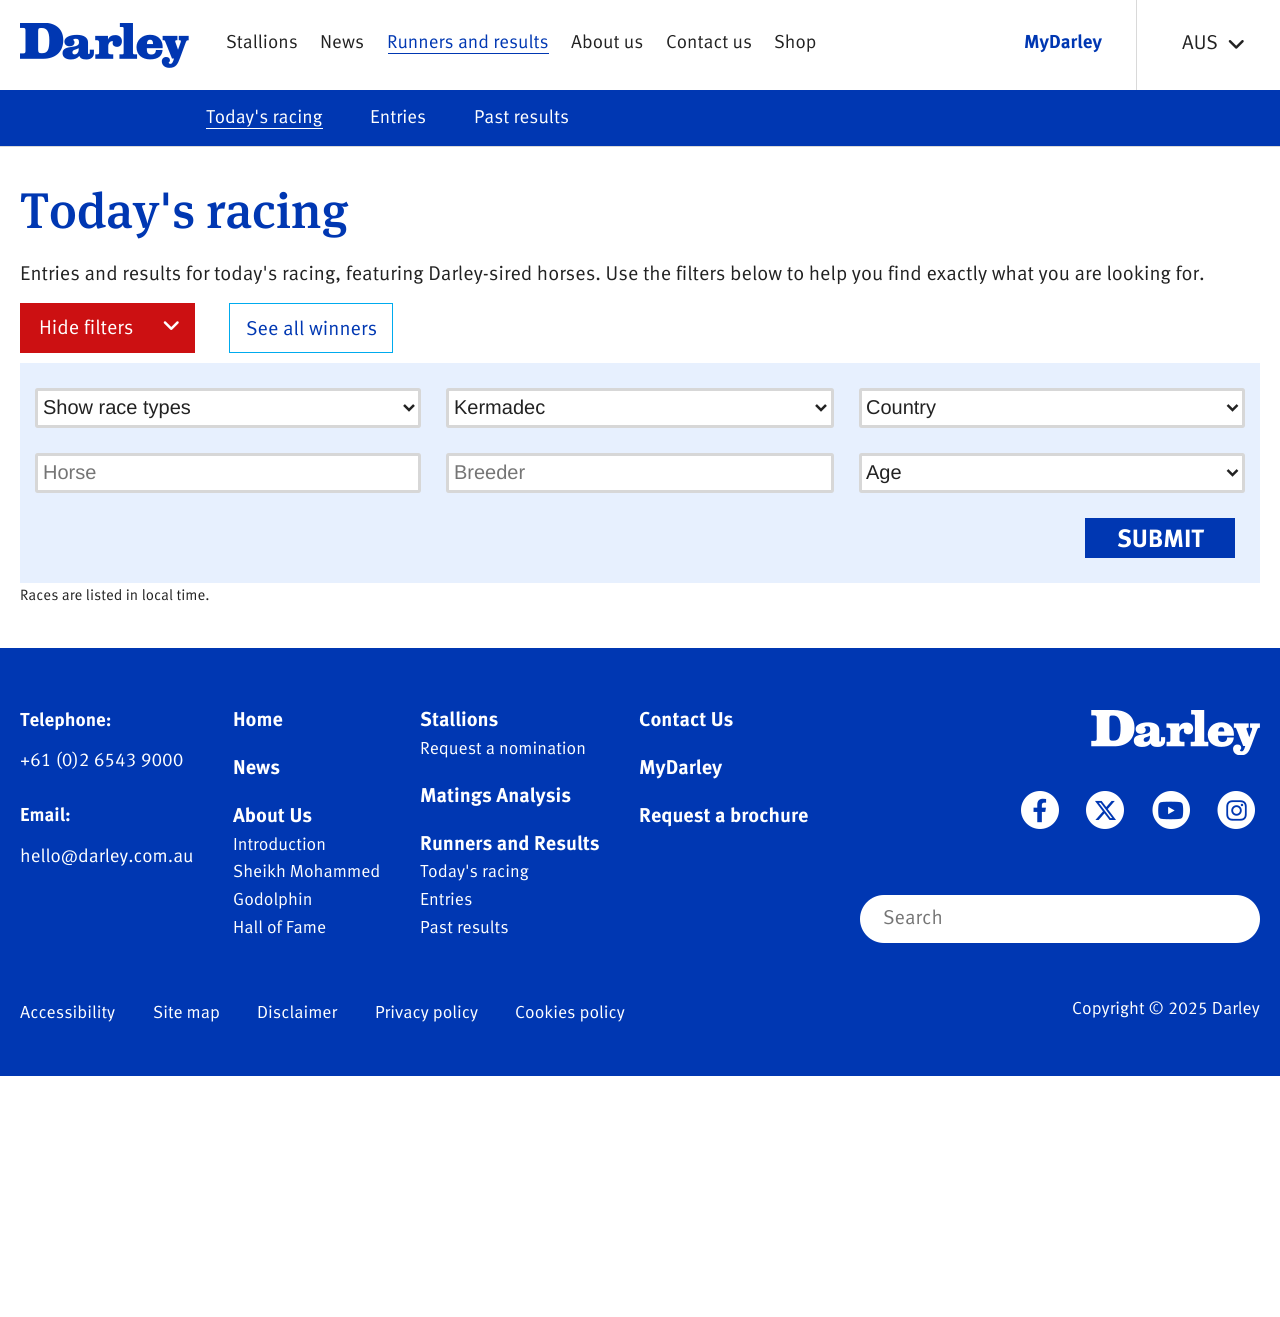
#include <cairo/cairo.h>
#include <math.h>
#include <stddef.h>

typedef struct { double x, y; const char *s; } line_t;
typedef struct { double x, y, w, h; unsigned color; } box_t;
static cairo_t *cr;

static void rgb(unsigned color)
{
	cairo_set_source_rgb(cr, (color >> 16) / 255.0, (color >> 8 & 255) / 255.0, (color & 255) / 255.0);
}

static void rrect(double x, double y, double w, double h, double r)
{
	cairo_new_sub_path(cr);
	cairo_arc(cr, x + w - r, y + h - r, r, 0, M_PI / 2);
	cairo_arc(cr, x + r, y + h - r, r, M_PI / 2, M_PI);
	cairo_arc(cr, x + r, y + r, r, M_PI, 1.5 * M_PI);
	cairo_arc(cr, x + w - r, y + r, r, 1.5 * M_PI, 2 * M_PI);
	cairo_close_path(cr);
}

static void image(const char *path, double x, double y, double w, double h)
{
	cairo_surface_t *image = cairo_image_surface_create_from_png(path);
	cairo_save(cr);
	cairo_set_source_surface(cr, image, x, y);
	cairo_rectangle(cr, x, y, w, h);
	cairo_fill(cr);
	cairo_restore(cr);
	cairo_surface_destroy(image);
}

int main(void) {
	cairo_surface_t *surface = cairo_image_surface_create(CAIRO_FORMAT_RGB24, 1280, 1317);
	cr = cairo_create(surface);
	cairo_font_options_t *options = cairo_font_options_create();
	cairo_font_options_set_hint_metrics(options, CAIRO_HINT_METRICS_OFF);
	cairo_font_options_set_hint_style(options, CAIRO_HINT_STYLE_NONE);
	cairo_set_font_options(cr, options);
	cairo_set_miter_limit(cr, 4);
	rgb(0xffffff);
	cairo_paint(cr);
	rgb(0xd9d9d9);
	cairo_rectangle(cr, 0, 146, 1280, 1);
	cairo_fill(cr);
	image("img/1.png", 20, 23, 169, 45);
	rgb(0x0037b2);
	cairo_rectangle(cr, 388, 53, 161, 1);
	cairo_fill(cr);
	rgb(0xd9d9d9);
	cairo_rectangle(cr, 1136, 0, 1, 90);
	cairo_fill(cr);
	image("img/2.png", 1228, 40, 16, 9);
	{
		static const box_t items[] = {
			{0, 90, 1280, 56, 0x0037b2},
			{206, 128, 117, 1, 0xffffff},
			{20, 303, 175, 50, 0xcc1012},
		};
		for (size_t i = 0; i < sizeof items / sizeof *items; i++) {
			rgb(items[i].color);
			cairo_rectangle(cr, items[i].x, items[i].y, items[i].w, items[i].h);
			cairo_fill(cr);
		}
	}
	image("img/3.png", 163, 321, 16, 9);
	cairo_rectangle(cr, 229.5, 303.5, 163, 49);
	rgb(0x00abee);
	cairo_set_line_width(cr, 1);
	cairo_stroke(cr);
	rgb(0xe7f0fe);
	cairo_rectangle(cr, 20, 363, 1240, 220);
	cairo_fill(cr);
	rgb(0xffffff);
	rrect(36.5, 389.5, 383, 37, 1);
	cairo_fill_preserve(cr);
	rgb(0xd7d7d7);
	cairo_set_line_width(cr, 3);
	cairo_stroke(cr);
	cairo_new_path(cr);
	cairo_move_to(cr, 404, 405);
	cairo_line_to(cr, 409, 410);
	cairo_line_to(cr, 414, 405);
	rgb(0x222222);
	cairo_set_line_width(cr, 2.5);
	cairo_stroke(cr);
	rgb(0xffffff);
	rrect(447.5, 389.5, 385, 37, 1);
	cairo_fill_preserve(cr);
	rgb(0xd7d7d7);
	cairo_set_line_width(cr, 3);
	cairo_stroke(cr);
	cairo_new_path(cr);
	cairo_move_to(cr, 816, 405);
	cairo_line_to(cr, 821, 410);
	cairo_line_to(cr, 826, 405);
	rgb(0x222222);
	cairo_set_line_width(cr, 2.5);
	cairo_stroke(cr);
	rgb(0xffffff);
	rrect(860.5, 389.5, 383, 37, 1);
	cairo_fill_preserve(cr);
	rgb(0xd7d7d7);
	cairo_set_line_width(cr, 3);
	cairo_stroke(cr);
	cairo_new_path(cr);
	cairo_move_to(cr, 1227.5, 405);
	cairo_line_to(cr, 1232.5, 410);
	cairo_line_to(cr, 1237.5, 405);
	rgb(0x222222);
	cairo_set_line_width(cr, 2.5);
	cairo_stroke(cr);
	rgb(0xffffff);
	rrect(36.5, 454.5, 383, 37, 1);
	cairo_fill_preserve(cr);
	rgb(0xd7d7d7);
	cairo_set_line_width(cr, 3);
	cairo_stroke(cr);
	rgb(0xffffff);
	rrect(447.5, 454.5, 385, 37, 1);
	cairo_fill_preserve(cr);
	rgb(0xd7d7d7);
	cairo_stroke(cr);
	rgb(0xffffff);
	rrect(860.5, 454.5, 383, 37, 1);
	cairo_fill_preserve(cr);
	rgb(0xd7d7d7);
	cairo_stroke(cr);
	cairo_new_path(cr);
	cairo_move_to(cr, 1227.5, 470);
	cairo_line_to(cr, 1232.5, 475);
	cairo_line_to(cr, 1237.5, 470);
	rgb(0x222222);
	cairo_set_line_width(cr, 2.5);
	cairo_stroke(cr);
	rgb(0x0037b2);
	cairo_rectangle(cr, 1085, 518, 150, 40);
	cairo_fill(cr);
	cairo_rectangle(cr, 0, 648, 1280, 428);
	cairo_fill(cr);
	image("img/4.png", 1091, 710, 169, 45);
	rgb(0xffffff);
	cairo_new_path(cr);
	cairo_move_to(cr, 1040, 829);
	cairo_curve_to(cr, 1050.5, 829, 1059, 820.5, 1059, 810);
	cairo_curve_to(cr, 1059, 799.5, 1050.5, 791, 1040, 791);
	cairo_curve_to(cr, 1029.5, 791, 1021, 799.5, 1021, 810);
	cairo_curve_to(cr, 1021, 820.5, 1029.5, 829, 1040, 829);
	cairo_close_path(cr);
	cairo_fill(cr);
	image("img/5.png", 1033, 798, 14, 25);
	cairo_new_path(cr);
	cairo_move_to(cr, 1105, 829);
	cairo_curve_to(cr, 1115.5, 829, 1124, 820.5, 1124, 810);
	cairo_curve_to(cr, 1124, 799.5, 1115.5, 791, 1105, 791);
	cairo_curve_to(cr, 1094.5, 791, 1086, 799.5, 1086, 810);
	cairo_curve_to(cr, 1086, 820.5, 1094.5, 829, 1105, 829);
	cairo_close_path(cr);
	cairo_fill(cr);
	image("img/6.png", 1095, 800, 21, 20);
	cairo_new_path(cr);
	cairo_move_to(cr, 1171, 829);
	cairo_curve_to(cr, 1181.5, 829, 1190, 820.5, 1190, 810);
	cairo_curve_to(cr, 1190, 799.5, 1181.5, 791, 1171, 791);
	cairo_curve_to(cr, 1161, 791, 1152.5, 799.5, 1152.5, 810);
	cairo_curve_to(cr, 1152.5, 820.5, 1161, 829, 1171, 829);
	cairo_close_path(cr);
	cairo_fill(cr);
	image("img/7.png", 1158, 801, 26, 19);
	cairo_new_path(cr);
	cairo_move_to(cr, 1236, 829);
	cairo_curve_to(cr, 1246.5, 829, 1255, 820.5, 1255, 810);
	cairo_curve_to(cr, 1255, 799.5, 1246.5, 791, 1236, 791);
	cairo_curve_to(cr, 1226, 791, 1217.5, 799.5, 1217.5, 810);
	cairo_curve_to(cr, 1217.5, 820.5, 1226, 829, 1236, 829);
	cairo_close_path(cr);
	cairo_fill(cr);
	image("img/8.png", 1226, 800, 21, 21);
	rrect(860, 895, 400, 48, 24);
	cairo_fill(cr);
	cairo_select_font_face(cr, "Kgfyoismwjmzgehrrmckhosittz", CAIRO_FONT_SLANT_NORMAL, CAIRO_FONT_WEIGHT_NORMAL);
	cairo_set_font_size(cr, 18.75);
	rgb(0x222222);
	cairo_move_to(cr, 226, 48);
	cairo_show_text(cr, "Stallions");
	cairo_move_to(cr, 320, 48);
	cairo_show_text(cr, "News");
	rgb(0x0037b2);
	cairo_move_to(cr, 387, 48);
	cairo_show_text(cr, "Runners and results");
	rgb(0x222222);
	{
		static const line_t items[] = {
			{571, 48, "About us"},
			{666, 48, "Contact us"},
			{774, 48, "Shop"},
		};
		for (size_t i = 0; i < sizeof items / sizeof *items; i++) {
			cairo_move_to(cr, items[i].x, items[i].y);
			cairo_show_text(cr, items[i].s);
		}
	}
	cairo_select_font_face(cr, "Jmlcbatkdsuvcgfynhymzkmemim", CAIRO_FONT_SLANT_NORMAL, CAIRO_FONT_WEIGHT_BOLD);
	rgb(0x0037b2);
	cairo_move_to(cr, 1024, 48);
	cairo_show_text(cr, "MyDarley");
	cairo_select_font_face(cr, "Kgfyoismwjmzgehrrmckhosittz", CAIRO_FONT_SLANT_NORMAL, CAIRO_FONT_WEIGHT_NORMAL);
	cairo_set_font_size(cr, 20);
	rgb(0x222222);
	cairo_move_to(cr, 1182, 49);
	cairo_show_text(cr, "AUS");
	cairo_set_font_size(cr, 18.75);
	rgb(0xffffff);
	{
		static const line_t items[] = {
			{206, 123, "Today's racing"},
			{370, 123, "Entries"},
			{474, 123, "Past results"},
		};
		for (size_t i = 0; i < sizeof items / sizeof *items; i++) {
			cairo_move_to(cr, items[i].x, items[i].y);
			cairo_show_text(cr, items[i].s);
		}
	}
	cairo_select_font_face(cr, "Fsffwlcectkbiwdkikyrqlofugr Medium", CAIRO_FONT_SLANT_NORMAL, CAIRO_FONT_WEIGHT_NORMAL);
	cairo_set_font_size(cr, 50);
	rgb(0x0037b2);
	cairo_move_to(cr, 20, 228);
	cairo_show_text(cr, "Today's racing");
	cairo_select_font_face(cr, "Kgfyoismwjmzgehrrmckhosittz", CAIRO_FONT_SLANT_NORMAL, CAIRO_FONT_WEIGHT_NORMAL);
	cairo_set_font_size(cr, 20);
	rgb(0x222222);
	cairo_move_to(cr, 20, 280);
	cairo_show_text(cr, "Entries and results for today's racing, featuring Darley-sired horses. Use the filters below to help you find exactly what you are looking for.");
	rgb(0xffffff);
	cairo_move_to(cr, 39, 334);
	cairo_show_text(cr, "Hide filters");
	rgb(0x0037b2);
	cairo_move_to(cr, 246, 335);
	cairo_show_text(cr, "See all winners");
	cairo_select_font_face(cr, "Liberation Sans", CAIRO_FONT_SLANT_NORMAL, CAIRO_FONT_WEIGHT_NORMAL);
	rgb(0x222222);
	{
		static const line_t items[] = {
			{43, 414, "Show race types"},
			{454, 414, "Kermadec"},
			{866, 414, "Country"},
		};
		for (size_t i = 0; i < sizeof items / sizeof *items; i++) {
			cairo_move_to(cr, items[i].x, items[i].y);
			cairo_show_text(cr, items[i].s);
		}
	}
	rgb(0x757575);
	cairo_move_to(cr, 43, 479);
	cairo_show_text(cr, "Horse");
	cairo_move_to(cr, 454, 479);
	cairo_show_text(cr, "Breeder");
	rgb(0x222222);
	cairo_move_to(cr, 866, 479);
	cairo_show_text(cr, "Age");
	cairo_select_font_face(cr, "Jmlcbatkdsuvcgfynhymzkmemim", CAIRO_FONT_SLANT_NORMAL, CAIRO_FONT_WEIGHT_BOLD);
	cairo_set_font_size(cr, 25);
	rgb(0xffffff);
	cairo_move_to(cr, 1117, 547);
	cairo_show_text(cr, "SUBMIT");
	cairo_select_font_face(cr, "Kgfyoismwjmzgehrrmckhosittz", CAIRO_FONT_SLANT_NORMAL, CAIRO_FONT_WEIGHT_NORMAL);
	cairo_set_font_size(cr, 15);
	rgb(0x222222);
	cairo_move_to(cr, 20, 600);
	cairo_show_text(cr, "Races are listed in local time.");
	cairo_select_font_face(cr, "Jmlcbatkdsuvcgfynhymzkmemim", CAIRO_FONT_SLANT_NORMAL, CAIRO_FONT_WEIGHT_BOLD);
	cairo_set_font_size(cr, 18.75);
	rgb(0xffffff);
	cairo_move_to(cr, 20, 726);
	cairo_show_text(cr, "Telephone:");
	cairo_select_font_face(cr, "Kgfyoismwjmzgehrrmckhosittz", CAIRO_FONT_SLANT_NORMAL, CAIRO_FONT_WEIGHT_NORMAL);
	cairo_move_to(cr, 20, 766);
	cairo_show_text(cr, "+61 (0)2 6543 9000");
	cairo_select_font_face(cr, "Jmlcbatkdsuvcgfynhymzkmemim", CAIRO_FONT_SLANT_NORMAL, CAIRO_FONT_WEIGHT_BOLD);
	cairo_move_to(cr, 20, 821);
	cairo_show_text(cr, "Email:");
	cairo_select_font_face(cr, "Kgfyoismwjmzgehrrmckhosittz", CAIRO_FONT_SLANT_NORMAL, CAIRO_FONT_WEIGHT_NORMAL);
	cairo_move_to(cr, 20, 862);
	cairo_show_text(cr, "hello@darley.com.au");
	cairo_select_font_face(cr, "Jmlcbatkdsuvcgfynhymzkmemim", CAIRO_FONT_SLANT_NORMAL, CAIRO_FONT_WEIGHT_BOLD);
	cairo_set_font_size(cr, 20);
	{
		static const line_t items[] = {
			{233, 726, "Home"},
			{233, 774, "News"},
			{233, 822, "About Us"},
		};
		for (size_t i = 0; i < sizeof items / sizeof *items; i++) {
			cairo_move_to(cr, items[i].x, items[i].y);
			cairo_show_text(cr, items[i].s);
		}
	}
	cairo_select_font_face(cr, "Kgfyoismwjmzgehrrmckhosittz", CAIRO_FONT_SLANT_NORMAL, CAIRO_FONT_WEIGHT_NORMAL);
	cairo_set_font_size(cr, 17.5);
	{
		static const line_t items[] = {
			{233, 850, "Introduction"},
			{233, 877, "Sheikh Mohammed"},
			{233, 905, "Godolphin"},
			{233, 933, "Hall of Fame"},
		};
		for (size_t i = 0; i < sizeof items / sizeof *items; i++) {
			cairo_move_to(cr, items[i].x, items[i].y);
			cairo_show_text(cr, items[i].s);
		}
	}
	cairo_select_font_face(cr, "Jmlcbatkdsuvcgfynhymzkmemim", CAIRO_FONT_SLANT_NORMAL, CAIRO_FONT_WEIGHT_BOLD);
	cairo_set_font_size(cr, 20);
	cairo_move_to(cr, 420, 726);
	cairo_show_text(cr, "Stallions");
	cairo_select_font_face(cr, "Kgfyoismwjmzgehrrmckhosittz", CAIRO_FONT_SLANT_NORMAL, CAIRO_FONT_WEIGHT_NORMAL);
	cairo_set_font_size(cr, 17.5);
	cairo_move_to(cr, 420, 754);
	cairo_show_text(cr, "Request a nomination");
	cairo_select_font_face(cr, "Jmlcbatkdsuvcgfynhymzkmemim", CAIRO_FONT_SLANT_NORMAL, CAIRO_FONT_WEIGHT_BOLD);
	cairo_set_font_size(cr, 20);
	cairo_move_to(cr, 420, 802);
	cairo_show_text(cr, "Matings Analysis");
	cairo_move_to(cr, 420, 850);
	cairo_show_text(cr, "Runners and Results");
	cairo_select_font_face(cr, "Kgfyoismwjmzgehrrmckhosittz", CAIRO_FONT_SLANT_NORMAL, CAIRO_FONT_WEIGHT_NORMAL);
	cairo_set_font_size(cr, 17.5);
	{
		static const line_t items[] = {
			{420, 877, "Today's racing"},
			{420, 905, "Entries"},
			{420, 933, "Past results"},
		};
		for (size_t i = 0; i < sizeof items / sizeof *items; i++) {
			cairo_move_to(cr, items[i].x, items[i].y);
			cairo_show_text(cr, items[i].s);
		}
	}
	cairo_select_font_face(cr, "Jmlcbatkdsuvcgfynhymzkmemim", CAIRO_FONT_SLANT_NORMAL, CAIRO_FONT_WEIGHT_BOLD);
	cairo_set_font_size(cr, 20);
	{
		static const line_t items[] = {
			{639, 726, "Contact Us"},
			{639, 774, "MyDarley"},
			{639, 822, "Request a brochure"},
		};
		for (size_t i = 0; i < sizeof items / sizeof *items; i++) {
			cairo_move_to(cr, items[i].x, items[i].y);
			cairo_show_text(cr, items[i].s);
		}
	}
	cairo_select_font_face(cr, "Kgfyoismwjmzgehrrmckhosittz", CAIRO_FONT_SLANT_NORMAL, CAIRO_FONT_WEIGHT_NORMAL);
	rgb(0x757575);
	cairo_move_to(cr, 883, 924);
	cairo_show_text(cr, "Search");
	cairo_set_font_size(cr, 17.5);
	rgb(0xffffff);
	{
		static const line_t items[] = {
			{20, 1018, "Accessibility"},
			{153, 1018, "Site map"},
			{257, 1018, "Disclaimer"},
			{375, 1018, "Privacy policy"},
			{515, 1018, "Cookies policy"},
			{1072, 1014, "Copyright © 2025 Darley"},
		};
		for (size_t i = 0; i < sizeof items / sizeof *items; i++) {
			cairo_move_to(cr, items[i].x, items[i].y);
			cairo_show_text(cr, items[i].s);
		}
	}
	cairo_surface_write_to_png(surface, "page.png");
	cairo_font_options_destroy(options);
	cairo_destroy(cr);
	cairo_surface_destroy(surface);
	return 0;
}
